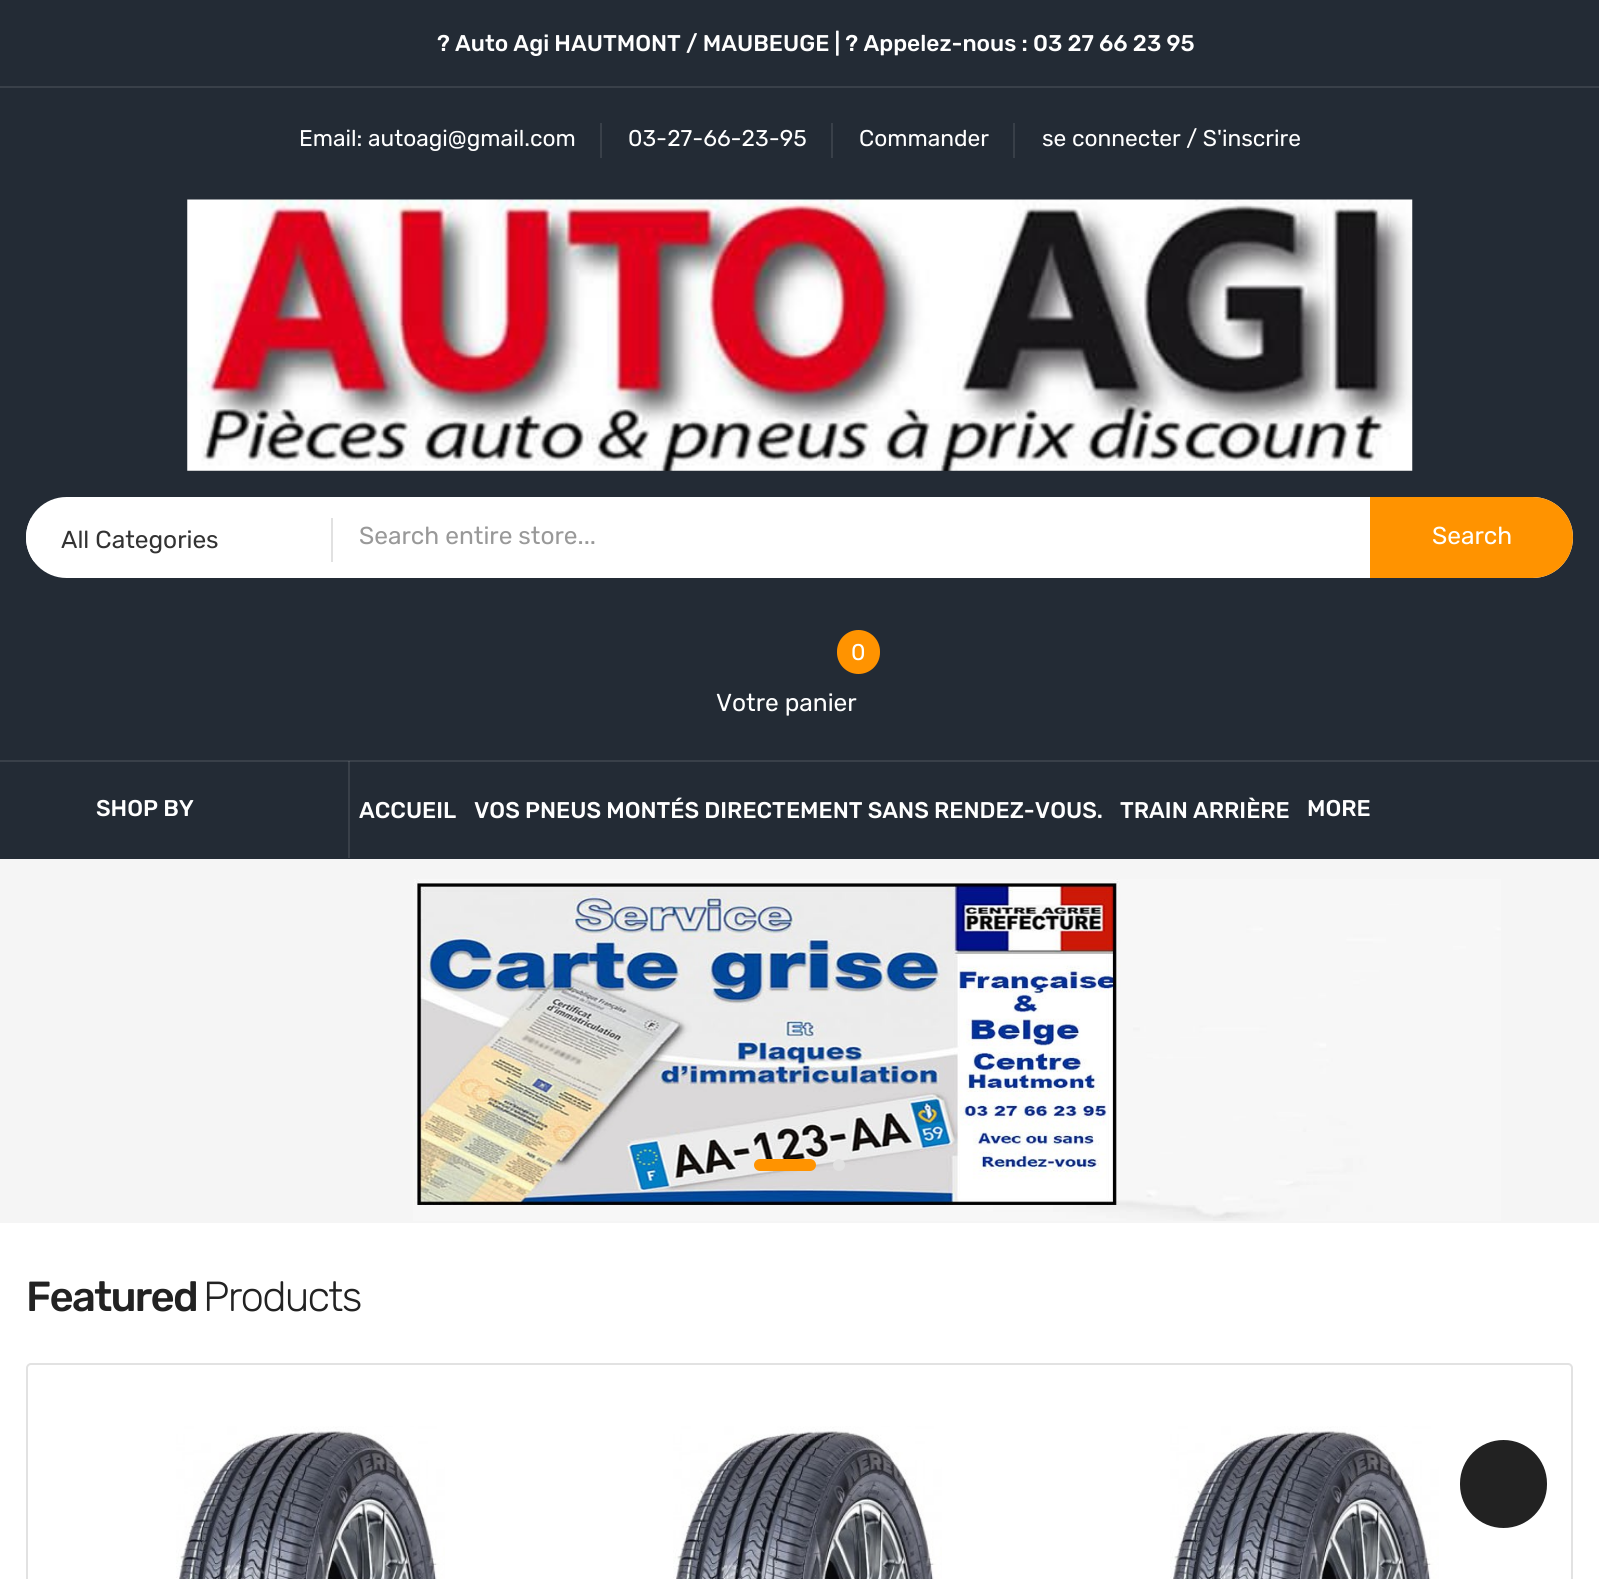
#include <cairo/cairo.h>
#include <math.h>
#include <stddef.h>

typedef struct { double x, y; const char *s; } line_t;
typedef struct { double x, y, w, h; unsigned color; } box_t;
static cairo_t *cr;

static void rgb(unsigned color)
{
	cairo_set_source_rgb(cr, (color >> 16) / 255.0, (color >> 8 & 255) / 255.0, (color & 255) / 255.0);
}

static void tracked(double x, double y, const char *s, double letter, double word)
{
	cairo_move_to(cr, x, y);
	while (*s) {
		char ch[5] = {0};
		int n = 0;
		do ch[n++] = *s++; while ((*s & 0xC0) == 0x80);
		cairo_show_text(cr, ch);
		cairo_rel_move_to(cr, letter + word * (*ch == ' '), 0);
	}
}

static void rrect(double x, double y, double w, double h, double r)
{
	cairo_new_sub_path(cr);
	cairo_arc(cr, x + w - r, y + h - r, r, 0, M_PI / 2);
	cairo_arc(cr, x + r, y + h - r, r, M_PI / 2, M_PI);
	cairo_arc(cr, x + r, y + r, r, M_PI, 1.5 * M_PI);
	cairo_arc(cr, x + w - r, y + r, r, 1.5 * M_PI, 2 * M_PI);
	cairo_close_path(cr);
}

static void image(const char *path, double x, double y, double w, double h)
{
	cairo_surface_t *image = cairo_image_surface_create_from_png(path);
	cairo_save(cr);
	cairo_set_source_surface(cr, image, x, y);
	cairo_rectangle(cr, x, y, w, h);
	cairo_fill(cr);
	cairo_restore(cr);
	cairo_surface_destroy(image);
}

int main(void) {
	cairo_surface_t *surface = cairo_image_surface_create(CAIRO_FORMAT_RGB24, 1599, 1579);
	cr = cairo_create(surface);
	cairo_font_options_t *options = cairo_font_options_create();
	cairo_font_options_set_hint_metrics(options, CAIRO_HINT_METRICS_OFF);
	cairo_font_options_set_hint_style(options, CAIRO_HINT_STYLE_NONE);
	cairo_set_font_options(cr, options);
	cairo_set_miter_limit(cr, 4);
	rgb(0xf5f5f5);
	cairo_paint(cr);
	{
		static const box_t items[] = {
			{0, 0, 1599, 859, 0x232b35},
			{348, 761, 2, 97, 0x394049},
			{0, 86, 1599, 2, 0x394049},
			{600, 123, 2, 35, 0x394049},
			{831, 123, 2, 35, 0x394049},
			{1013, 123, 2, 35, 0x383f48},
		};
		for (size_t i = 0; i < sizeof items / sizeof *items; i++) {
			rgb(items[i].color);
			cairo_rectangle(cr, items[i].x, items[i].y, items[i].w, items[i].h);
			cairo_fill(cr);
		}
	}
	image("img/1.png", 187, 199, 1226, 272);
	rgb(0xffffff);
	rrect(26, 497, 1547, 81, 40.5);
	cairo_fill(cr);
	cairo_save(cr);
	rrect(26, 497, 1547, 81, 40.5);
	cairo_clip(cr);
	cairo_rectangle(cr, 26, 518, 305, 44);
	cairo_fill(cr);
	cairo_restore(cr);
	rgb(0xe1e1e1);
	cairo_rectangle(cr, 331, 518, 2, 44);
	cairo_fill(cr);
	rgb(0xff9300);
	cairo_new_path(cr);
	cairo_move_to(cr, 1370, 497);
	cairo_line_to(cr, 1532.5, 497);
	cairo_curve_to(cr, 1555, 497, 1573, 515, 1573, 537.5);
	cairo_curve_to(cr, 1573, 560, 1555, 578, 1532.5, 578);
	cairo_line_to(cr, 1370, 578);
	cairo_close_path(cr);
	cairo_fill(cr);
	rrect(837, 630, 43, 44, 21.5);
	cairo_fill(cr);
	rgb(0x394049);
	cairo_rectangle(cr, 0, 760, 1599, 2);
	cairo_fill(cr);
	rgb(0x4d535b);
	cairo_rectangle(cr, 348, 761, 2, 1);
	cairo_fill(cr);
	image("img/2.png", 413, 879, 1088, 342);
	rgb(0xff9300);
	rrect(754, 1159, 62, 12, 6);
	cairo_fill(cr);
	rgb(0xe1e1e1);
	cairo_arc(cr, 839, 1165, 6, 0, 2 * M_PI);
	cairo_fill(cr);
	rgb(0xffffff);
	cairo_rectangle(cr, 0, 1223, 1599, 356);
	cairo_fill(cr);
	rrect(27, 1364, 1545, 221, 4);
	rgb(0xe2e2e2);
	cairo_stroke(cr);
	image("img/3.png", 176, 1426, 269, 153);
	image("img/3.png", 673, 1426, 269, 153);
	image("img/3.png", 1170, 1426, 269, 153);
	rgb(0x222222);
	rrect(1460, 1440, 87, 88, 43.5);
	cairo_fill(cr);
	cairo_select_font_face(cr, "Rubik Medium", CAIRO_FONT_SLANT_NORMAL, CAIRO_FONT_WEIGHT_NORMAL);
	cairo_set_font_size(cr, 22.75);
	rgb(0xffffff);
	cairo_move_to(cr, 437, 51);
	cairo_show_text(cr, "? Auto Agi HAUTMONT / MAUBEUGE | ? Appelez-nous : 03 27 66 23 95");
	cairo_select_font_face(cr, "Rubik", CAIRO_FONT_SLANT_NORMAL, CAIRO_FONT_WEIGHT_NORMAL);
	{
		static const line_t items[] = {
			{299, 146, "Email: autoagi@gmail.com"},
			{628, 146, "03-27-66-23-95"},
			{859, 146, "Commander"},
			{1042, 146, "se connecter / S'inscrire"},
		};
		for (size_t i = 0; i < sizeof items / sizeof *items; i++) {
			cairo_move_to(cr, items[i].x, items[i].y);
			cairo_show_text(cr, items[i].s);
		}
	}
	cairo_set_font_size(cr, 24.5);
	rgb(0x333333);
	cairo_move_to(cr, 61, 548);
	cairo_show_text(cr, "All Categories");
	rgb(0x999999);
	cairo_move_to(cr, 359, 544);
	cairo_show_text(cr, "Search entire store...");
	rgb(0xffffff);
	cairo_move_to(cr, 1432, 544);
	cairo_show_text(cr, "Search");
	cairo_set_font_size(cr, 22.75);
	cairo_move_to(cr, 851, 660);
	cairo_show_text(cr, "0");
	cairo_set_font_size(cr, 24.5);
	cairo_move_to(cr, 716, 711);
	cairo_show_text(cr, "Votre panier");
	cairo_select_font_face(cr, "Rubik Medium", CAIRO_FONT_SLANT_NORMAL, CAIRO_FONT_WEIGHT_NORMAL);
	cairo_set_font_size(cr, 22.75);
	{
		static const line_t items[] = {
			{96, 816, "SHOP BY"},
			{359, 818, "ACCUEIL"},
			{474, 818, "VOS PNEUS MONTÉS DIRECTEMENT SANS RENDEZ-VOUS."},
			{1120, 818, "TRAIN ARRIÈRE"},
			{1307, 816, "MORE"},
		};
		for (size_t i = 0; i < sizeof items / sizeof *items; i++) {
			cairo_move_to(cr, items[i].x, items[i].y);
			cairo_show_text(cr, items[i].s);
		}
	}
	cairo_set_font_size(cr, 42);
	rgb(0x222222);
	tracked(26, 1311, "Featured", -1.75, 0);
	cairo_select_font_face(cr, "Rubik Light", CAIRO_FONT_SLANT_NORMAL, CAIRO_FONT_WEIGHT_NORMAL);
	tracked(203, 1311, "Products", -1.75, 0);
	cairo_surface_write_to_png(surface, "page.png");
	cairo_font_options_destroy(options);
	cairo_destroy(cr);
	cairo_surface_destroy(surface);
	return 0;
}
